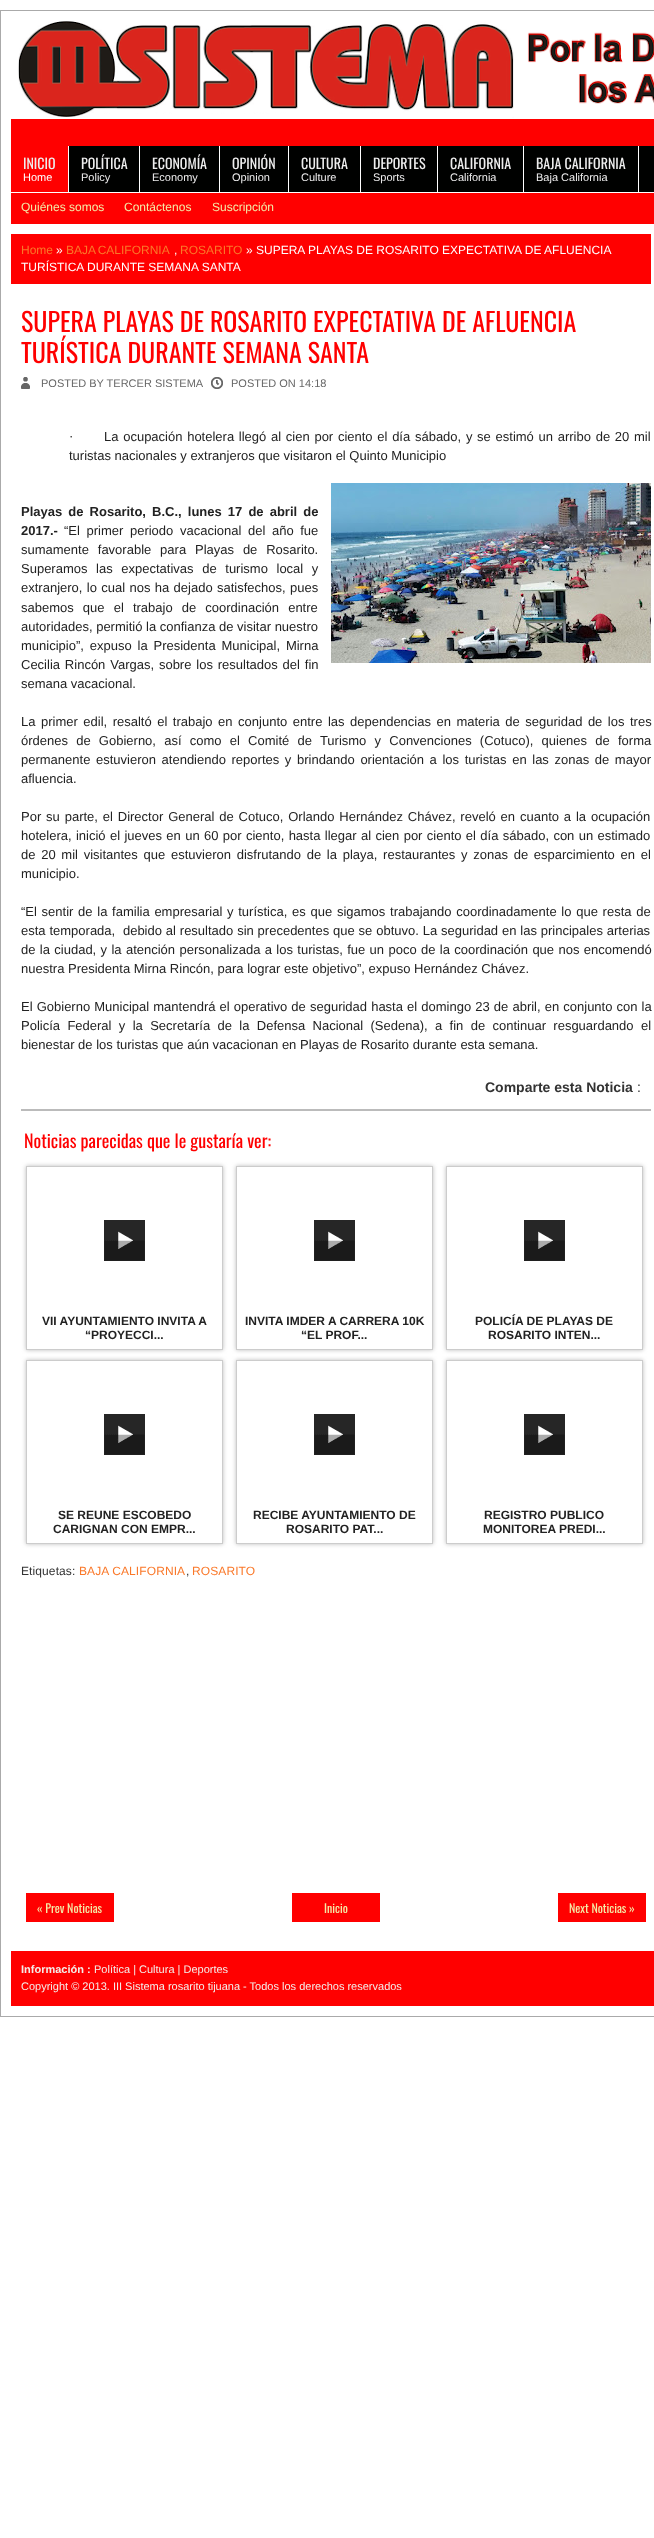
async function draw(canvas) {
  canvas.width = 654
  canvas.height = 2538
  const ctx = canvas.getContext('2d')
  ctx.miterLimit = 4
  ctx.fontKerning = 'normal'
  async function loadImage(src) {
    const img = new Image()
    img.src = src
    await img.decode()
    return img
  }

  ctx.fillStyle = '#fff'
  ctx.fillRect(0, 0, 654, 2538)
  ctx.strokeStyle = '#aaa'
  ctx.strokeRect(0.5, 10.5, 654, 2006)
  ctx.fillStyle = '#f00'
  ctx.fillRect(11, 119, 643, 27)
  ctx.drawImage(await loadImage('image0.png'), 11, 21, 643, 98)
  ctx.fillStyle = '#000100'
  ctx.fillRect(69, 146, 585, 46)
  ctx.fillStyle = '#f00'
  ctx.fillRect(11, 146, 57, 46)
  ctx.font = '14px Oswald'
  ctx.fillStyle = '#eee'
  ctx.fillText('INICIO', 23, 169)
  ctx.font = '11px Liberation Sans'
  ctx.fillStyle = '#fff'
  ctx.fillText('Home', 23, 181)
  ctx.fillRect(139, 146, 1, 46)
  ctx.font = '14px Oswald'
  ctx.fillStyle = '#eee'
  ctx.fillText('POLÍTICA', 81, 169)
  ctx.font = '11px Liberation Sans'
  ctx.fillText('Policy', 81, 181)
  ctx.fillStyle = '#fff'
  ctx.fillRect(219, 146, 1, 46)
  ctx.font = '14px Oswald'
  ctx.fillStyle = '#eee'
  ctx.fillText('ECONOMÍA', 152, 169)
  ctx.font = '11px Liberation Sans'
  ctx.fillText('Economy', 152, 181)
  ctx.fillStyle = '#fff'
  ctx.fillRect(288, 146, 1, 46)
  ctx.font = '14px Oswald'
  ctx.fillStyle = '#eee'
  ctx.fillText('OPINIÓN', 232, 169)
  ctx.font = '11px Liberation Sans'
  ctx.fillText('Opinion', 232, 181)
  ctx.fillStyle = '#fff'
  ctx.fillRect(360, 146, 1, 46)
  ctx.font = '14px Oswald'
  ctx.fillStyle = '#eee'
  ctx.fillText('CULTURA', 301, 169)
  ctx.font = '11px Liberation Sans'
  ctx.fillText('Culture', 301, 181)
  ctx.fillStyle = '#fff'
  ctx.fillRect(437, 146, 1, 46)
  ctx.font = '14px Oswald'
  ctx.fillStyle = '#eee'
  ctx.fillText('DEPORTES', 373, 169)
  ctx.font = '11px Liberation Sans'
  ctx.fillText('Sports', 373, 181)
  ctx.fillStyle = '#fff'
  ctx.fillRect(523, 146, 1, 46)
  ctx.font = '14px Oswald'
  ctx.fillStyle = '#eee'
  ctx.fillText('CALIFORNIA', 450, 169)
  ctx.font = '11px Liberation Sans'
  ctx.fillText('California', 450, 181)
  ctx.fillStyle = '#fff'
  ctx.fillRect(638, 146, 1, 46)
  ctx.font = '14px Oswald'
  ctx.fillStyle = '#eee'
  ctx.fillText('BAJA CALIFORNIA', 536, 169)
  ctx.font = '11px Liberation Sans'
  ctx.fillText('Baja California', 536, 181)
  ctx.fillStyle = '#f00'
  ctx.fillRect(11, 193, 643, 31)
  ctx.font = '12px Liberation Sans'
  ctx.fillStyle = '#f4eaa6'
  ctx.fillText('Quiénes somos', 21, 211)
  ctx.fillText('Contáctenos', 124, 211)
  ctx.fillText('Suscripción', 212, 211)
  ctx.fillStyle = '#f00'
  ctx.fillRect(11, 234, 640, 50)
  ctx.fillStyle = '#fa7829'
  ctx.fillText('Home', 21, 254)
  ctx.fillStyle = '#fff'
  ctx.fillText('»', 56, 254)
  ctx.wordSpacing = '-1px'
  ctx.fillStyle = '#fa7829'
  ctx.fillText('BAJA CALIFORNIA', 66, 254)
  ctx.wordSpacing = '0px'
  ctx.fillStyle = '#fff'
  ctx.fillText(',', 174, 254)
  ctx.fillStyle = '#fa7829'
  ctx.fillText('ROSARITO', 180, 254)
  ctx.fillStyle = '#fff'
  ctx.fillText('» SUPERA PLAYAS DE ROSARITO EXPECTATIVA DE AFLUENCIA', 246, 254)
  ctx.fillText('TURÍSTICA DURANTE SEMANA SANTA', 21, 271)
  ctx.font = '26px Oswald'
  ctx.fillStyle = '#f00'
  ctx.fillText('SUPERA PLAYAS DE ROSARITO EXPECTATIVA DE AFLUENCIA', 21, 332)
  ctx.fillText('TURÍSTICA DURANTE SEMANA SANTA', 21, 363)
  ctx.drawImage(await loadImage('image1.png'), 21, 377, 9, 12)
  ctx.font = '11px Liberation Sans'
  ctx.fillStyle = '#666'
  ctx.fillText('POSTED BY TERCER SISTEMA', 41, 387)
  ctx.drawImage(await loadImage('image2.png'), 211, 377, 12, 12)
  ctx.fillText('POSTED ON 14:18', 231, 387)
  ctx.font = '13px Liberation Serif'
  ctx.fillStyle = '#222'
  ctx.fillText('·', 69, 441)
  ctx.wordSpacing = '1.1px'
  ctx.font = '13px Liberation Sans'
  ctx.fillText('La ocupación hotelera llegó al cien por ciento el día sábado, y se estimó un arribo de 20 mil', 104, 441)
  ctx.wordSpacing = '0px'
  ctx.fillText('turistas nacionales y extranjeros que visitaron el Quinto Municipio', 69, 460)
  ctx.wordSpacing = '2.5px'
  ctx.font = 'bold 13px Liberation Sans'
  ctx.fillText('Playas de Rosarito, B.C., lunes 17 de abril de', 21, 516)
  ctx.wordSpacing = '0px'
  ctx.fillText('2017.-', 21, 535)
  ctx.wordSpacing = '3px'
  ctx.font = '13px Liberation Sans'
  ctx.fillText('“El primer periodo vacacional del año fue', 64, 535)
  ctx.wordSpacing = '5.25px'
  ctx.fillText('sumamente favorable para Playas de Rosarito.', 21, 554)
  ctx.wordSpacing = '5px'
  ctx.fillText('Superamos las expectativas de turismo local y', 21, 573)
  ctx.wordSpacing = '0.75px'
  ctx.fillText('extranjero, lo cual nos ha dejado satisfechos, pues', 21, 592)
  ctx.wordSpacing = '5.5px'
  ctx.fillText('sabemos que el trabajo de coordinación entre', 21, 612)
  ctx.wordSpacing = '0px'
  ctx.fillText('autoridades, permitió la confianza de visitar nuestro', 21, 631)
  ctx.wordSpacing = '2.25px'
  ctx.fillText('municipio”, expuso la Presidenta Municipal, Mirna', 21, 650)
  ctx.wordSpacing = '1.25px'
  ctx.fillText('Cecilia Rincón Vargas, sobre los resultados del fin', 21, 669)
  ctx.wordSpacing = '0px'
  ctx.fillText('semana vacacional.', 21, 688)
  ctx.drawImage(await loadImage('image3.png'), 331, 483, 320, 180)
  ctx.wordSpacing = '1.9px'
  ctx.fillText('La primer edil, resaltó el trabajo en conjunto entre las dependencias en materia de seguridad de los tres', 21, 726)
  ctx.wordSpacing = '4.6px'
  ctx.fillText('órdenes de Gobierno, así como el Comité de Turismo y Convenciones (Cotuco), quienes de forma', 21, 745)
  ctx.wordSpacing = '2px'
  ctx.fillText('permanente estuvieron atendiendo reportes y brindando orientación a los turistas en las zonas de mayor', 21, 764)
  ctx.wordSpacing = '0px'
  ctx.fillText('afluencia.', 21, 783)
  ctx.wordSpacing = '1.25px'
  ctx.fillText('Por su parte, el Director General de Cotuco, Orlando Hernández Chávez, reveló en cuanto a la ocupación', 21, 821)
  ctx.wordSpacing = '0.75px'
  ctx.fillText('hotelera, inició el jueves en un 60 por ciento, hasta llegar al cien por ciento el día sábado, con un estimado', 21, 840)
  ctx.wordSpacing = '2.1px'
  ctx.fillText('de 20 mil visitantes que estuvieron disfrutando de la playa, restaurantes y zonas de esparcimiento en el', 21, 859)
  ctx.wordSpacing = '0px'
  ctx.fillText('municipio.', 21, 878)
  ctx.wordSpacing = '1.1px'
  ctx.fillText('“El sentir de la familia empresarial y turística, es que sigamos trabajando coordinadamente lo que resta de', 21, 916)
  ctx.wordSpacing = '0.25px'
  ctx.fillText('esta temporada,  debido al resultado sin precedentes que se obtuvo. La seguridad en las principales arterias', 21, 935)
  ctx.wordSpacing = '0.75px'
  ctx.fillText('de la ciudad, y la atención personalizada a los turistas, fue un poco de la coordinación que nos encomendó', 21, 954)
  ctx.wordSpacing = '0px'
  ctx.fillText('nuestra Presidenta Mirna Rincón, para lograr este objetivo”, expuso Hernández Chávez.', 21, 973)
  ctx.wordSpacing = '0.5px'
  ctx.fillText('El Gobierno Municipal mantendrá el operativo de seguridad hasta el domingo 23 de abril, en conjunto con la', 21, 1011)
  ctx.wordSpacing = '3.75px'
  ctx.fillText('Policía Federal y la Secretaría de la Defensa Nacional (Sedena), a fin de continuar resguardando el', 21, 1030)
  ctx.wordSpacing = '0px'
  ctx.fillText('bienestar de los turistas que aún vacacionan en Playas de Rosarito durante esta semana.', 21, 1049)
  ctx.fillStyle = '#bbb'
  ctx.fillRect(21, 1109, 630, 2)
  ctx.font = 'bold 14px Liberation Sans'
  ctx.fillStyle = '#333'
  ctx.fillText('Comparte esta Noticia', 485, 1092)
  ctx.font = '14px Liberation Sans'
  ctx.fillText(':', 637, 1092)
  ctx.font = '18px Oswald'
  ctx.fillStyle = '#f00'
  ctx.fillText('Noticias parecidas que le gustaría ver:', 24, 1148)
  ctx.save()
  ctx.beginPath()
  ctx.moveTo(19, 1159)
  ctx.lineTo(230, 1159)
  ctx.lineTo(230, 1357)
  ctx.lineTo(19, 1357)
  ctx.closePath()
  ctx.moveTo(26, 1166)
  ctx.lineTo(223, 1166)
  ctx.lineTo(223, 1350)
  ctx.lineTo(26, 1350)
  ctx.closePath()
  ctx.clip('evenodd')
  ctx.fillStyle = '#bbb'
  ctx.filter = 'blur(2px)'
  ctx.beginPath()
  ctx.rect(26, 1166, 197, 184)
  ctx.fill()
  ctx.filter = 'none'
  ctx.restore()
  ctx.strokeStyle = '#ccc'
  ctx.strokeRect(26.5, 1166.5, 196, 183)
  ctx.drawImage(await loadImage('image4.png'), 104, 1220, 41, 41)
  ctx.font = 'bold 12px Liberation Sans'
  ctx.fillStyle = '#222'
  ctx.fillText('VII AYUNTAMIENTO INVITA A', 42, 1325)
  ctx.fillText('“PROYECCI...', 85, 1339)
  ctx.save()
  ctx.beginPath()
  ctx.moveTo(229, 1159)
  ctx.lineTo(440, 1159)
  ctx.lineTo(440, 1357)
  ctx.lineTo(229, 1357)
  ctx.closePath()
  ctx.moveTo(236, 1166)
  ctx.lineTo(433, 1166)
  ctx.lineTo(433, 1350)
  ctx.lineTo(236, 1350)
  ctx.closePath()
  ctx.clip('evenodd')
  ctx.fillStyle = '#bbb'
  ctx.filter = 'blur(2px)'
  ctx.beginPath()
  ctx.rect(236, 1166, 197, 184)
  ctx.fill()
  ctx.filter = 'none'
  ctx.restore()
  ctx.strokeRect(236.5, 1166.5, 196, 183)
  ctx.drawImage(await loadImage('image4.png'), 314, 1220, 41, 41)
  ctx.fillText('INVITA IMDER A CARRERA 10K', 245, 1325)
  ctx.fillText('“EL PROF...', 301, 1339)
  ctx.save()
  ctx.beginPath()
  ctx.moveTo(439, 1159)
  ctx.lineTo(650, 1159)
  ctx.lineTo(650, 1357)
  ctx.lineTo(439, 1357)
  ctx.closePath()
  ctx.moveTo(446, 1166)
  ctx.lineTo(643, 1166)
  ctx.lineTo(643, 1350)
  ctx.lineTo(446, 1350)
  ctx.closePath()
  ctx.clip('evenodd')
  ctx.fillStyle = '#bbb'
  ctx.filter = 'blur(2px)'
  ctx.beginPath()
  ctx.rect(446, 1166, 197, 184)
  ctx.fill()
  ctx.filter = 'none'
  ctx.restore()
  ctx.strokeRect(446.5, 1166.5, 196, 183)
  ctx.drawImage(await loadImage('image4.png'), 524, 1220, 41, 41)
  ctx.fillText('POLICÍA DE PLAYAS DE', 475, 1325)
  ctx.fillText('ROSARITO INTEN...', 488, 1339)
  ctx.save()
  ctx.beginPath()
  ctx.moveTo(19, 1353)
  ctx.lineTo(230, 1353)
  ctx.lineTo(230, 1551)
  ctx.lineTo(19, 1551)
  ctx.closePath()
  ctx.moveTo(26, 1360)
  ctx.lineTo(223, 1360)
  ctx.lineTo(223, 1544)
  ctx.lineTo(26, 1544)
  ctx.closePath()
  ctx.clip('evenodd')
  ctx.fillStyle = '#bbb'
  ctx.filter = 'blur(2px)'
  ctx.beginPath()
  ctx.rect(26, 1360, 197, 184)
  ctx.fill()
  ctx.filter = 'none'
  ctx.restore()
  ctx.strokeRect(26.5, 1360.5, 196, 183)
  ctx.drawImage(await loadImage('image4.png'), 104, 1414, 41, 41)
  ctx.fillText('SE REUNE ESCOBEDO', 58, 1519)
  ctx.fillText('CARIGNAN CON EMPR...', 53, 1533)
  ctx.save()
  ctx.beginPath()
  ctx.moveTo(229, 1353)
  ctx.lineTo(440, 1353)
  ctx.lineTo(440, 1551)
  ctx.lineTo(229, 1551)
  ctx.closePath()
  ctx.moveTo(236, 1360)
  ctx.lineTo(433, 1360)
  ctx.lineTo(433, 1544)
  ctx.lineTo(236, 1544)
  ctx.closePath()
  ctx.clip('evenodd')
  ctx.fillStyle = '#bbb'
  ctx.filter = 'blur(2px)'
  ctx.beginPath()
  ctx.rect(236, 1360, 197, 184)
  ctx.fill()
  ctx.filter = 'none'
  ctx.restore()
  ctx.strokeRect(236.5, 1360.5, 196, 183)
  ctx.drawImage(await loadImage('image4.png'), 314, 1414, 41, 41)
  ctx.fillText('RECIBE AYUNTAMIENTO DE', 253, 1519)
  ctx.fillText('ROSARITO PAT...', 286, 1533)
  ctx.save()
  ctx.beginPath()
  ctx.moveTo(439, 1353)
  ctx.lineTo(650, 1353)
  ctx.lineTo(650, 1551)
  ctx.lineTo(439, 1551)
  ctx.closePath()
  ctx.moveTo(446, 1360)
  ctx.lineTo(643, 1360)
  ctx.lineTo(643, 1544)
  ctx.lineTo(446, 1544)
  ctx.closePath()
  ctx.clip('evenodd')
  ctx.fillStyle = '#bbb'
  ctx.filter = 'blur(2px)'
  ctx.beginPath()
  ctx.rect(446, 1360, 197, 184)
  ctx.fill()
  ctx.filter = 'none'
  ctx.restore()
  ctx.strokeRect(446.5, 1360.5, 196, 183)
  ctx.drawImage(await loadImage('image4.png'), 524, 1414, 41, 41)
  ctx.fillText('REGISTRO PUBLICO', 484, 1519)
  ctx.fillText('MONITOREA PREDI...', 483, 1533)
  ctx.letterSpacing = '0.1px'
  ctx.font = '12px Liberation Sans'
  ctx.fillStyle = '#333'
  ctx.fillText('Etiquetas:', 21, 1575)
  ctx.fillStyle = '#fa7829'
  ctx.fillText('BAJA CALIFORNIA', 79, 1575)
  ctx.fillStyle = '#333'
  ctx.fillText(',', 186, 1575)
  ctx.fillStyle = '#fa7829'
  ctx.fillText('ROSARITO', 192, 1575)
  ctx.fillStyle = '#f00'
  ctx.fillRect(26, 1893, 88, 29)
  ctx.letterSpacing = '0px'
  ctx.font = '12px Oswald'
  ctx.fillStyle = '#f4eaa6'
  ctx.fillText('« Prev Noticias', 37, 1913)
  ctx.fillStyle = '#f00'
  ctx.fillRect(292, 1893, 88, 29)
  ctx.fillStyle = '#f4eaa6'
  ctx.fillText('Inicio', 324, 1913)
  ctx.fillStyle = '#f00'
  ctx.fillRect(558, 1893, 88, 29)
  ctx.fillStyle = '#f4eaa6'
  ctx.fillText('Next Noticias »', 569, 1913)
  ctx.fillStyle = '#f00'
  ctx.fillRect(11, 1951, 643, 55)
  ctx.font = 'bold 11px Liberation Sans'
  ctx.fillStyle = '#f4ede9'
  ctx.fillText('Información :', 21, 1973)
  ctx.font = '11px Liberation Sans'
  ctx.fillText('Política | Cultura | Deportes', 94, 1973)
  ctx.fillText('Copyright © 2013. III Sistema rosarito tijuana - Todos los derechos reservados', 21, 1990)
}

draw(document.querySelector('canvas'))
